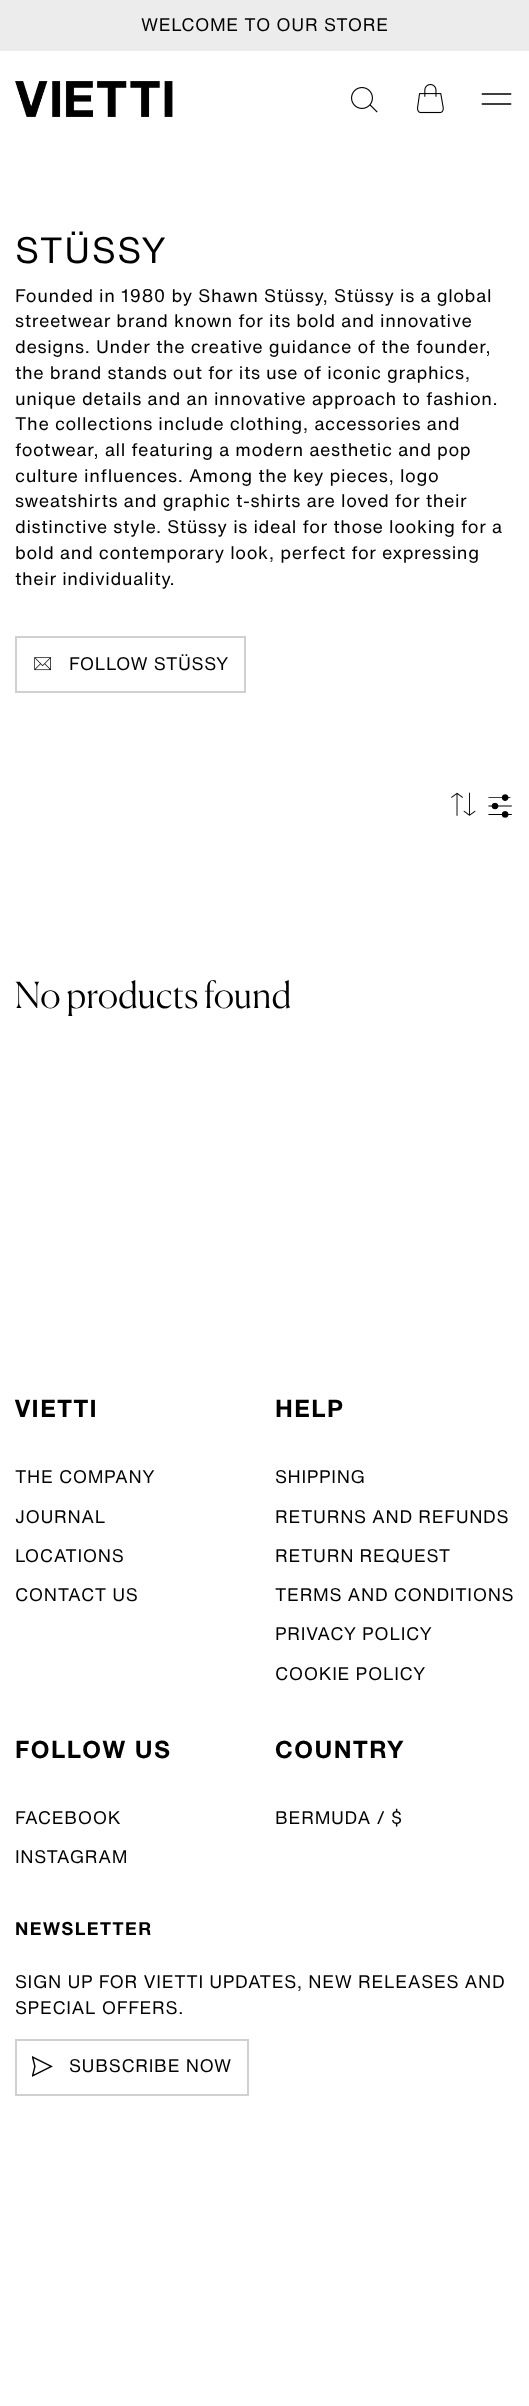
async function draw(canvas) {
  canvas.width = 529
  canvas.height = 2406
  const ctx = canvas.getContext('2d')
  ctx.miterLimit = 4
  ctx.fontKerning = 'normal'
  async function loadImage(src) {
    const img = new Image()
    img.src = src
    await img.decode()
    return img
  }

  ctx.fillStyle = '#fff'
  ctx.fillRect(0, 0, 529, 2406)
  ctx.fillStyle = '#ececec'
  ctx.fillRect(0, 0, 529, 51)
  ctx.letterSpacing = '0.6px'
  ctx.font = '18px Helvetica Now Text'
  ctx.fillStyle = '#000'
  ctx.fillText('WELCOME TO OUR STORE', 141, 31)
  ctx.drawImage(await loadImage('image0.png'), 15, 81, 158, 36)
  ctx.drawImage(await loadImage('image1.png'), 351, 87, 27, 26)
  ctx.drawImage(await loadImage('image2.png'), 417, 84, 27, 30)
  ctx.beginPath()
  ctx.moveTo(482.5, 94)
  ctx.lineTo(510.5, 94)
  ctx.moveTo(482.5, 104)
  ctx.lineTo(510.5, 104)
  ctx.strokeStyle = '#000'
  ctx.lineWidth = 1.5
  ctx.lineCap = 'square'
  ctx.stroke()
  ctx.letterSpacing = '1.5px'
  ctx.font = '36px Helvetica Now Text'
  ctx.fillText('STÜSSY', 15, 263)
  ctx.letterSpacing = '0.6px'
  ctx.font = '18px Helvetica Now Text'
  ctx.fillText('Founded in 1980 by Shawn Stüssy, Stüssy is a global', 15, 302)
  ctx.fillText('streetwear brand known for its bold and innovative', 15, 327)
  ctx.fillText('designs. Under the creative guidance of the founder,', 15, 353)
  ctx.fillText('the brand stands out for its use of iconic graphics,', 15, 379)
  ctx.fillText('unique details and an innovative approach to fashion.', 15, 405)
  ctx.fillText('The collections include clothing, accessories and', 15, 430)
  ctx.fillText('footwear, all featuring a modern aesthetic and pop', 15, 456)
  ctx.fillText('culture influences. Among the key pieces, logo', 15, 482)
  ctx.fillText('sweatshirts and graphic t-shirts are loved for their', 15, 507)
  ctx.fillText('distinctive style. Stüssy is ideal for those looking for a', 15, 533)
  ctx.fillText('bold and contemporary look, perfect for expressing', 15, 559)
  ctx.fillText('their individuality.', 15, 585)
  ctx.strokeStyle = '#d0d0d0'
  ctx.lineWidth = 2
  ctx.strokeRect(16, 637, 229, 55)
  ctx.drawImage(await loadImage('image3.png'), 34, 657, 17, 14)
  ctx.fillText('FOLLOW STÜSSY', 69, 670)
  ctx.drawImage(await loadImage('image4.png'), 451, 792, 25, 24)
  ctx.drawImage(await loadImage('image5.png'), 488, 794, 24, 24)
  ctx.letterSpacing = '0px'
  ctx.font = '300 36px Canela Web'
  ctx.fillText('No products found', 15, 1008)
  ctx.letterSpacing = '1.5px'
  ctx.font = 'bold 24px "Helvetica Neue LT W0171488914"'
  ctx.fillText('VIETTI', 15, 1417)
  ctx.letterSpacing = '0.6px'
  ctx.font = '18px Helvetica Now Text'
  ctx.fillText('THE COMPANY', 15, 1483)
  ctx.fillText('JOURNAL', 15, 1523)
  ctx.fillText('LOCATIONS', 15, 1562)
  ctx.fillText('CONTACT US', 15, 1601)
  ctx.letterSpacing = '1.5px'
  ctx.font = 'bold 24px "Helvetica Neue LT W0171488914"'
  ctx.fillText('HELP', 275, 1417)
  ctx.letterSpacing = '0.6px'
  ctx.font = '18px Helvetica Now Text'
  ctx.fillText('SHIPPING', 275, 1483)
  ctx.fillText('RETURNS AND REFUNDS', 275, 1523)
  ctx.fillText('RETURN REQUEST', 275, 1562)
  ctx.fillText('TERMS AND CONDITIONS', 275, 1601)
  ctx.fillText('PRIVACY POLICY', 275, 1640)
  ctx.fillText('COOKIE POLICY', 275, 1680)
  ctx.letterSpacing = '1.5px'
  ctx.font = 'bold 24px "Helvetica Neue LT W0171488914"'
  ctx.fillText('FOLLOW US', 15, 1758)
  ctx.letterSpacing = '0.6px'
  ctx.font = '18px Helvetica Now Text'
  ctx.fillText('FACEBOOK', 15, 1824)
  ctx.fillText('INSTAGRAM', 15, 1863)
  ctx.letterSpacing = '1.5px'
  ctx.font = 'bold 24px "Helvetica Neue LT W0171488914"'
  ctx.fillText('COUNTRY', 275, 1758)
  ctx.letterSpacing = '0.6px'
  ctx.font = '18px Helvetica Now Text'
  ctx.fillText('BERMUDA / $', 275, 1824)
  ctx.letterSpacing = '1.5px'
  ctx.font = 'bold 18px "Helvetica Neue LT W0171488914"'
  ctx.fillText('NEWSLETTER', 15, 1935)
  ctx.letterSpacing = '0.6px'
  ctx.font = '18px Helvetica Now Text'
  ctx.fillText('SIGN UP FOR VIETTI UPDATES, NEW RELEASES AND', 15, 1988)
  ctx.fillText('SPECIAL OFFERS.', 15, 2014)
  ctx.strokeRect(16, 2040, 232, 55)
  ctx.drawImage(await loadImage('image6.png'), 32, 2056, 21, 21)
  ctx.fillText('SUBSCRIBE NOW', 69, 2072)
}

draw(document.querySelector('canvas'))
